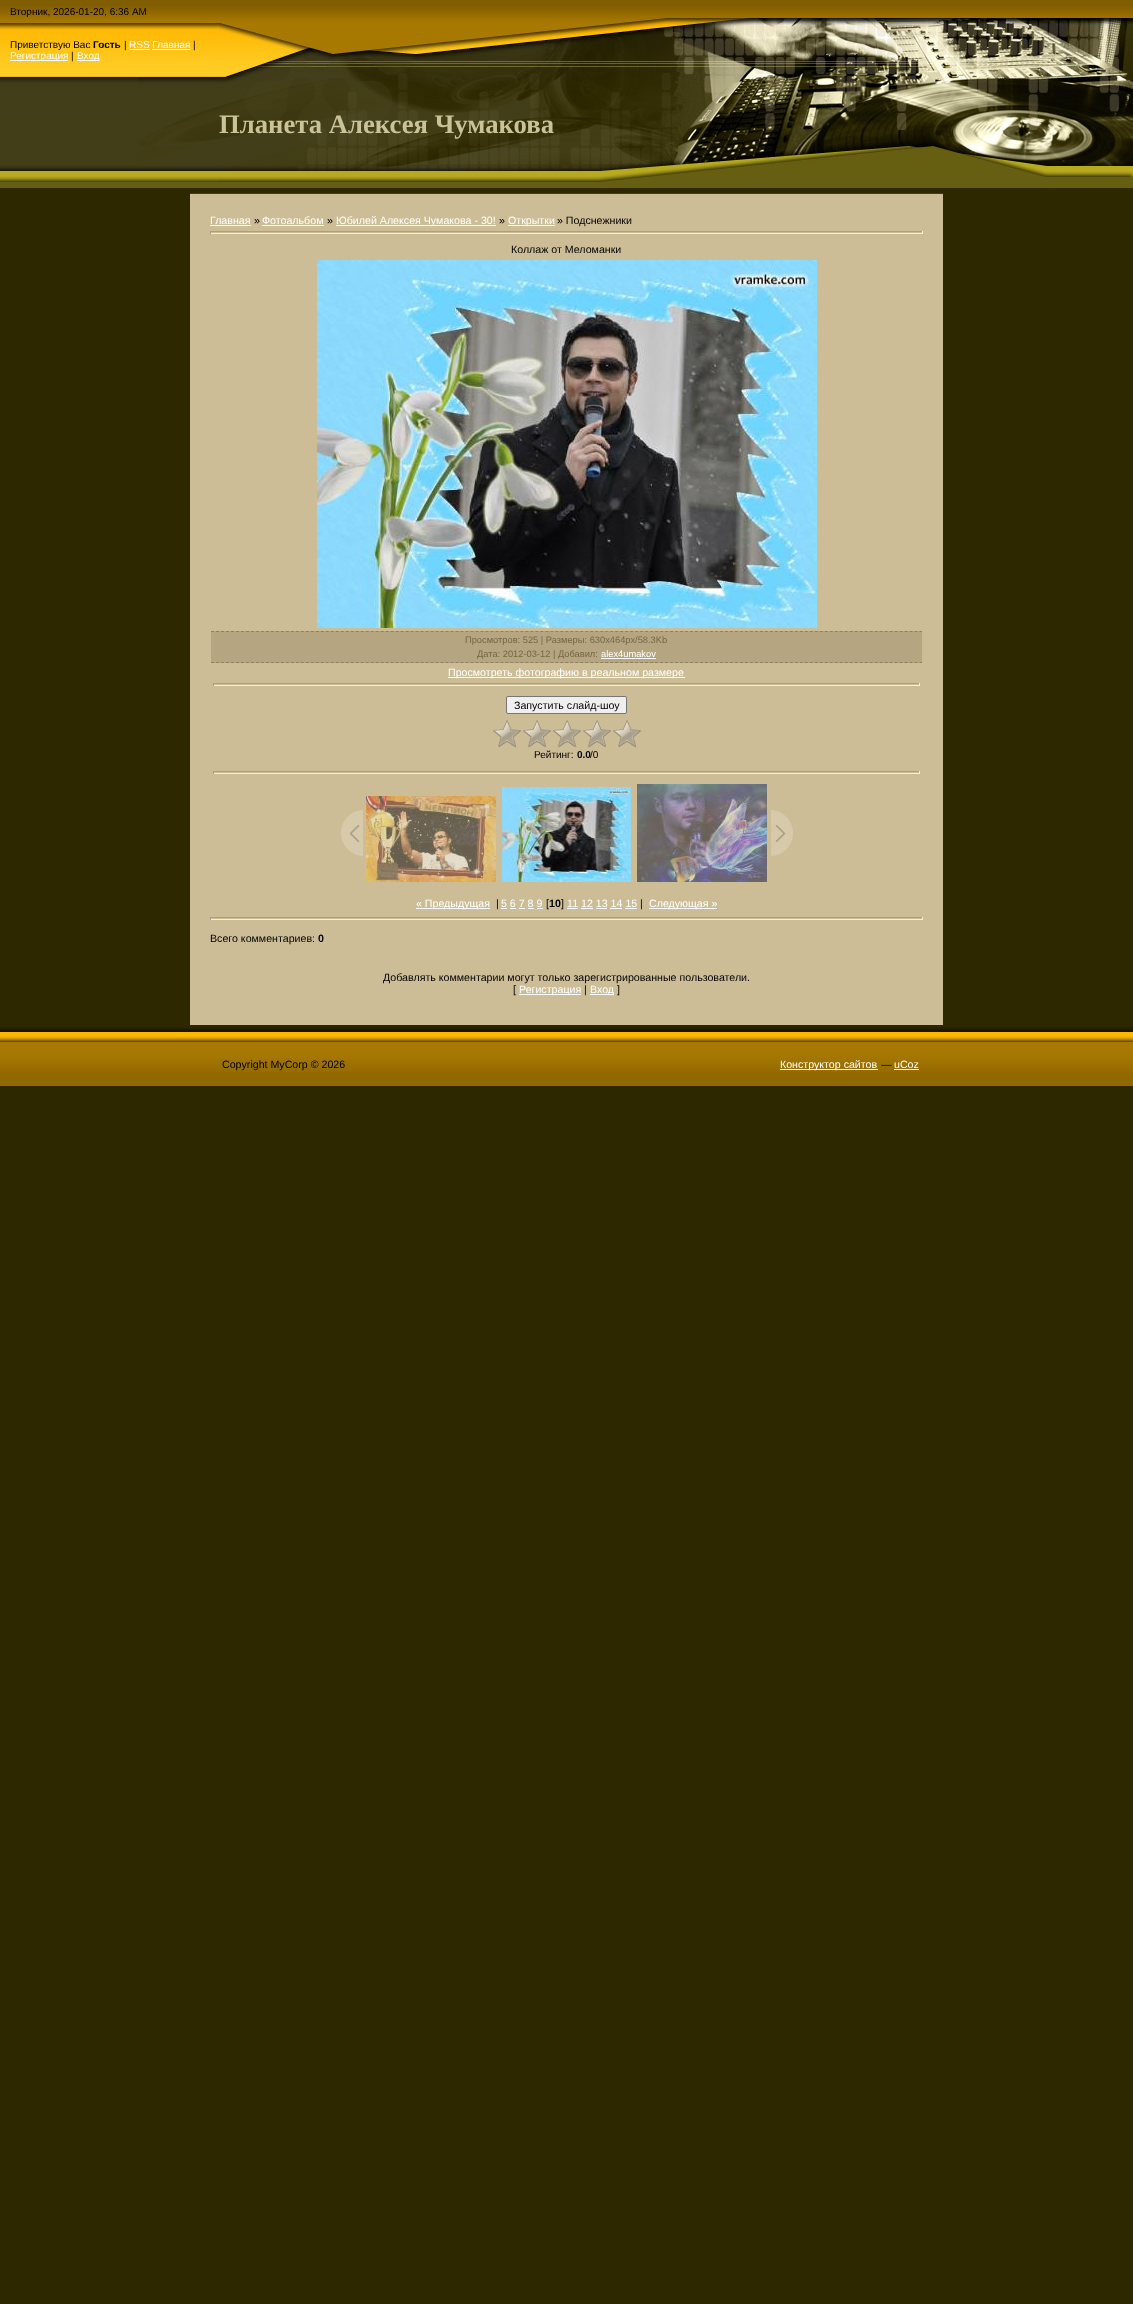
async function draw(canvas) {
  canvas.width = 1133
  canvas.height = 2304
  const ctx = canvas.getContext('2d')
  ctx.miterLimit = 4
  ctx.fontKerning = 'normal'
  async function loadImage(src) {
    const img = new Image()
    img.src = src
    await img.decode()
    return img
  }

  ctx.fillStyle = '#2d2800'
  ctx.fillRect(0, 0, 1133, 2304)
  ctx.drawImage(await loadImage('image0.png'), 0, 0, 1133, 188)
  ctx.font = '10px Liberation Sans'
  ctx.fillStyle = '#000'
  ctx.fillText('Вторник, 2026-01-20, 6:36 AM', 10, 15)
  ctx.drawImage(await loadImage('image1.png'), 621, 18, 512, 5)
  ctx.fillText('Приветствую Вас', 10, 48)
  ctx.font = 'bold 10px Liberation Sans'
  ctx.fillText('Гость', 93, 48)
  ctx.font = '10px Liberation Sans'
  ctx.fillText('|', 124, 48)
  ctx.fillStyle = '#fff'
  ctx.fillText('RSS Главная', 129, 48)
  ctx.fillRect(129, 49, 21, 1)
  ctx.fillStyle = '#000'
  ctx.fillText('|', 193, 48)
  ctx.fillStyle = '#fff'
  ctx.fillRect(152, 49, 39, 1)
  ctx.fillRect(10, 60, 58, 1)
  ctx.fillText('Регистрация', 10, 59)
  ctx.fillStyle = '#000'
  ctx.fillText('|', 71, 59)
  ctx.fillStyle = '#fff'
  ctx.fillRect(77, 60, 22, 1)
  ctx.fillText('Вход', 77, 59)
  ctx.drawImage(await loadImage('image2.png'), 219, 23, 393, 54)
  ctx.drawImage(await loadImage('image3.png'), 612, 23, 521, 54)
  ctx.drawImage(await loadImage('image4.png'), 137, 77, 82, 89)
  ctx.drawImage(await loadImage('image5.png'), 219, 77, 393, 94)
  ctx.font = 'bold 26.7px Liberation Serif'
  ctx.fillStyle = '#c9c397'
  ctx.fillText('Планета Алексея Чумакова', 219, 133)
  ctx.drawImage(await loadImage('image6.png'), 612, 77, 521, 94)
  ctx.drawImage(await loadImage('image7.png'), 219, 171, 914, 11)
  ctx.fillStyle = '#cdbd97'
  ctx.fillRect(190, 194, 753, 831)
  ctx.fillStyle = '#443f0c'
  ctx.fillRect(190, 193, 753, 1)
  ctx.font = '10.65px Liberation Sans'
  ctx.fillStyle = '#fff'
  ctx.fillText('Главная', 210, 224)
  ctx.fillRect(210, 225, 41, 1)
  ctx.fillStyle = '#000'
  ctx.fillText('»', 254, 224)
  ctx.fillStyle = '#fff'
  ctx.fillText('Фотоальбом', 262, 224)
  ctx.fillRect(262, 225, 62, 1)
  ctx.fillStyle = '#000'
  ctx.fillText('»', 327, 224)
  ctx.fillStyle = '#fff'
  ctx.fillRect(336, 225, 160, 1)
  ctx.fillText('Юбилей Алексея Чумакова - 30!', 336, 224)
  ctx.fillStyle = '#000'
  ctx.fillText('»', 499, 224)
  ctx.fillStyle = '#fff'
  ctx.fillRect(508, 225, 47, 1)
  ctx.fillText('Открытки', 508, 224)
  ctx.fillStyle = '#000'
  ctx.fillText('» Подснежники', 557, 224)
  ctx.fillStyle = '#9f9f9f'
  ctx.fillRect(210, 231, 713, 1)
  ctx.fillStyle = '#eee'
  ctx.fillRect(922, 231, 1, 3)
  ctx.fillRect(210, 233, 713, 1)
  ctx.fillStyle = '#9f9f9f'
  ctx.fillRect(210, 231, 1, 3)
  ctx.fillStyle = '#000'
  ctx.fillText('Коллаж от Меломанки', 511, 253)
  ctx.drawImage(await loadImage('image8.png'), 317, 260, 500, 368)
  ctx.fillStyle = '#b6a581'
  ctx.fillRect(211, 631, 711, 32)
  ctx.beginPath()
  ctx.moveTo(211, 631.5)
  ctx.lineTo(922, 631.5)
  ctx.strokeStyle = '#90805e'
  ctx.setLineDash([3, 1.99])
  ctx.stroke()
  ctx.beginPath()
  ctx.moveTo(211, 662.5)
  ctx.lineTo(922, 662.5)
  ctx.stroke()
  ctx.font = '9.3px Liberation Sans'
  ctx.fillStyle = '#756746'
  ctx.fillText('Просмотров: 525 | Размеры: 630x464px/58.3Kb', 465, 643)
  ctx.fillText('Дата: 2012-03-12 | Добавил:', 477, 657)
  ctx.fillStyle = '#fff'
  ctx.fillText('alex4umakov', 601, 657)
  ctx.fillRect(601, 658, 55, 1)
  ctx.fillRect(448, 677, 237, 1)
  ctx.font = '10.65px Liberation Sans'
  ctx.fillText('Просмотреть фотографию в реальном размере', 448, 676)
  ctx.fillStyle = '#9f9f9f'
  ctx.fillRect(213, 683, 707, 1)
  ctx.fillStyle = '#eee'
  ctx.fillRect(919, 683, 1, 3)
  ctx.fillRect(213, 685, 707, 1)
  ctx.fillStyle = '#9f9f9f'
  ctx.fillRect(213, 683, 1, 3)
  ctx.fillStyle = '#efefef'
  ctx.beginPath()
  ctx.roundRect(506.5, 696.5, 120, 17, 1.5)
  ctx.fill()
  ctx.strokeStyle = '#767676'
  ctx.setLineDash([])
  ctx.stroke()
  ctx.fillStyle = '#000'
  ctx.fillText('Запустить слайд-шоу', 514, 709)
  ctx.drawImage(await loadImage('image9.png'), 493, 720, 148, 28)
  ctx.font = '10px Liberation Sans'
  ctx.fillText('Рейтинг:', 534, 758)
  ctx.font = 'bold 10px Liberation Sans'
  ctx.fillText('0.0', 577, 758)
  ctx.font = '10px Liberation Sans'
  ctx.fillText('/0', 590, 758)
  ctx.fillStyle = '#9f9f9f'
  ctx.fillRect(213, 771, 707, 1)
  ctx.fillStyle = '#eee'
  ctx.fillRect(919, 771, 1, 3)
  ctx.fillRect(213, 773, 707, 1)
  ctx.fillStyle = '#9f9f9f'
  ctx.fillRect(213, 771, 1, 3)
  ctx.drawImage(await loadImage('image10.png'), 341, 810, 22, 46)
  ctx.drawImage(await loadImage('image11.png'), 366, 796, 130, 86)
  ctx.drawImage(await loadImage('image12.png'), 502, 787, 129, 95)
  ctx.drawImage(await loadImage('image13.png'), 637, 784, 130, 98)
  ctx.drawImage(await loadImage('image14.png'), 771, 810, 22, 46)
  ctx.fillStyle = '#fff'
  ctx.fillRect(416, 908, 74, 1)
  ctx.font = '10.65px Liberation Sans'
  ctx.fillText('« Предыдущая', 416, 907)
  ctx.fillStyle = '#000'
  ctx.fillText('|', 496, 907)
  ctx.fillStyle = '#fff'
  ctx.fillText('5 6 7 8 9', 501, 907)
  ctx.fillRect(501, 908, 6, 1)
  ctx.fillStyle = '#000'
  ctx.fillText('[', 546, 907)
  ctx.font = 'bold 10.65px Liberation Sans'
  ctx.fillText('10', 549, 907)
  ctx.font = '10.65px Liberation Sans'
  ctx.fillText(']', 561, 907)
  ctx.fillStyle = '#fff'
  ctx.fillText('11 12 13 14 15', 567, 907)
  ctx.fillRect(567, 908, 11, 1)
  ctx.fillStyle = '#000'
  ctx.fillText('|', 640, 907)
  ctx.fillStyle = '#fff'
  ctx.fillRect(649, 908, 68, 1)
  ctx.fillText('Следующая »', 649, 907)
  ctx.fillRect(510, 908, 6, 1)
  ctx.fillRect(519, 908, 6, 1)
  ctx.fillRect(528, 908, 6, 1)
  ctx.fillRect(537, 908, 6, 1)
  ctx.fillRect(581, 908, 12, 1)
  ctx.fillRect(596, 908, 11, 1)
  ctx.fillRect(610, 908, 12, 1)
  ctx.fillRect(625, 908, 12, 1)
  ctx.fillStyle = '#9f9f9f'
  ctx.fillRect(210, 917, 713, 1)
  ctx.fillStyle = '#eee'
  ctx.fillRect(922, 917, 1, 3)
  ctx.fillRect(210, 919, 713, 1)
  ctx.fillStyle = '#9f9f9f'
  ctx.fillRect(210, 917, 1, 3)
  ctx.fillStyle = '#000'
  ctx.fillText('Всего комментариев:', 210, 942)
  ctx.font = 'bold 10.65px Liberation Sans'
  ctx.fillText('0', 318, 942)
  ctx.font = '10.65px Liberation Sans'
  ctx.fillText('Добавлять комментарии могут только зарегистрированные пользователи.', 383, 981)
  ctx.fillText('[', 513, 993)
  ctx.fillStyle = '#fff'
  ctx.fillRect(519, 994, 62, 1)
  ctx.fillText('Регистрация', 519, 993)
  ctx.fillStyle = '#000'
  ctx.fillText('|', 584, 993)
  ctx.fillStyle = '#fff'
  ctx.fillRect(590, 994, 24, 1)
  ctx.fillText('Вход', 590, 993)
  ctx.fillStyle = '#000'
  ctx.fillText(']', 617, 993)
  ctx.drawImage(await loadImage('image15.png'), 0, 1025, 1133, 61)
  ctx.fillText('Copyright MyCorp © 2026', 222, 1068)
  ctx.fillStyle = '#fff'
  ctx.fillRect(780, 1069, 98, 1)
  ctx.fillText('Конструктор сайтов', 780, 1068)
  ctx.fillStyle = '#000'
  ctx.fillText('—', 881, 1068)
  ctx.fillStyle = '#fff'
  ctx.fillText('uCoz', 894, 1068)
  ctx.fillRect(894, 1069, 25, 1)
}

draw(document.querySelector('canvas'))
